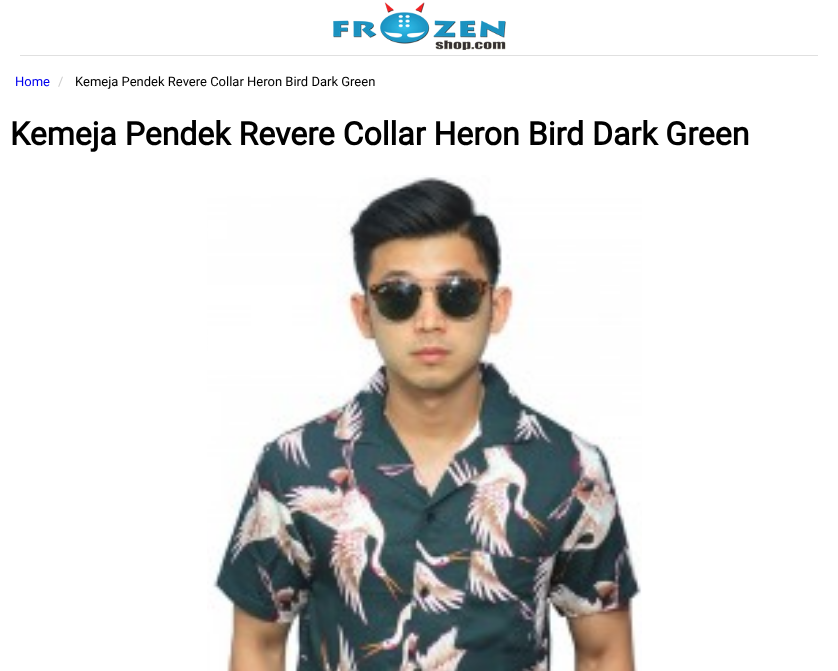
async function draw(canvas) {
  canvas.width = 838
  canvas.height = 671
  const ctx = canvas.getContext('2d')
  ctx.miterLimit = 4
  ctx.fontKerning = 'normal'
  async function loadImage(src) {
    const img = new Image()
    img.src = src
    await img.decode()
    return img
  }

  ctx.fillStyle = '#fff'
  ctx.fillRect(0, 0, 838, 671)
  ctx.fillStyle = '#e0e0e0'
  ctx.fillRect(20, 55, 798, 1)
  ctx.drawImage(await loadImage('image0.png'), 333, 2, 173, 48)
  ctx.font = '13px Roboto'
  ctx.fillStyle = '#00e'
  ctx.fillText('Home', 15, 86)
  ctx.fillStyle = '#ccc'
  ctx.fillText('/', 58, 86)
  ctx.fillStyle = '#000'
  ctx.fillText('Kemeja Pendek Revere Collar Heron Bird Dark Green', 75, 86)
  ctx.font = 'bold 32px Roboto'
  ctx.fillText('Kemeja Pendek Revere Collar Heron Bird Dark Green', 10, 145)
  ctx.drawImage(await loadImage('image1.png'), 207, 175, 435, 496)
}

draw(document.querySelector('canvas'))
